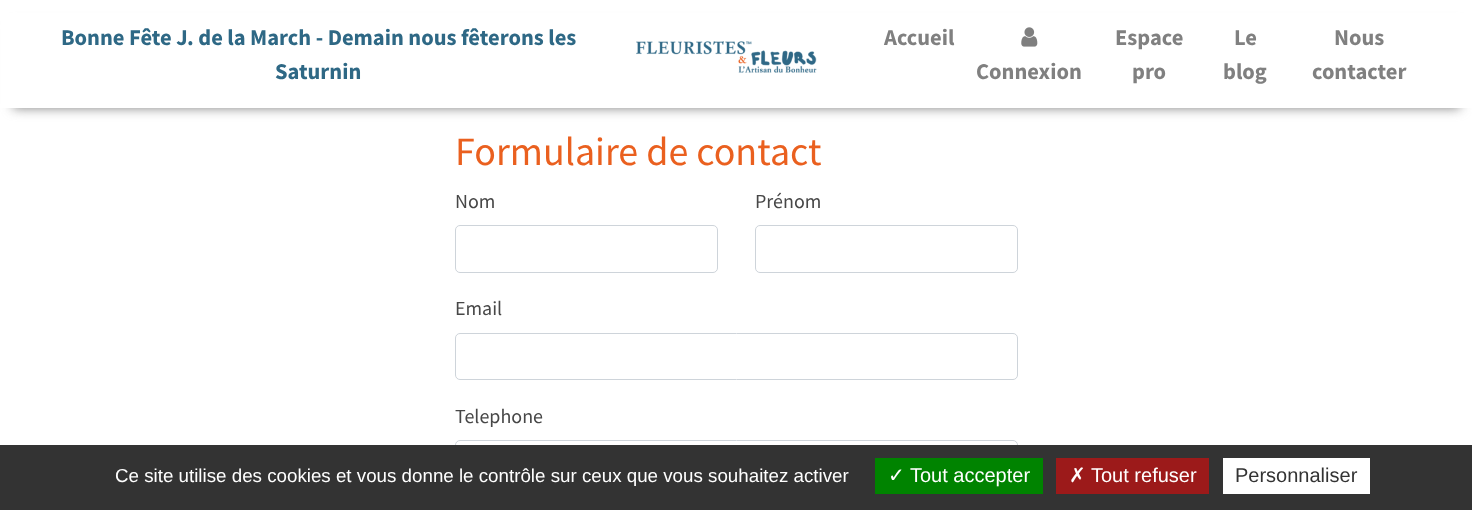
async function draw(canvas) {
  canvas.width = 1472
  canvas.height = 510
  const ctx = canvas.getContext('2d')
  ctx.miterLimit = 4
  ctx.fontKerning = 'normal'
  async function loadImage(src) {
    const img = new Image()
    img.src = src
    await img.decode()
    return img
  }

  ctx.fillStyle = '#fff'
  ctx.fillRect(0, 0, 1472, 510)
  ctx.fillStyle = '#808080'
  ctx.filter = 'blur(6px)'
  ctx.beginPath()
  ctx.rect(13, 25, 1447, 83)
  ctx.fill()
  ctx.filter = 'none'
  ctx.fillStyle = '#fff'
  ctx.fillRect(1, 13, 1471, 95)
  ctx.font = 'bold 22.5px Source Sans Pro'
  ctx.fillStyle = '#2e6885'
  ctx.fillText('Bonne Fête J. de la March - Demain nous fêterons les', 61, 45)
  ctx.fillText('Saturnin', 275, 79)
  ctx.drawImage(await loadImage('image0.png'), 636, 41, 181, 32)
  ctx.fillStyle = '#808080'
  ctx.fillText('Accueil', 884, 45)
  ctx.drawImage(await loadImage('image1.png'), 1021, 27, 17, 20)
  ctx.fillText('Connexion', 976, 79)
  ctx.fillText('Espace', 1115, 45)
  ctx.fillText('pro', 1132, 79)
  ctx.fillText('Le', 1234, 45)
  ctx.fillText('blog', 1223, 79)
  ctx.fillText('Nous', 1334, 45)
  ctx.fillText('contacter', 1312, 79)
  ctx.font = '40px Source Sans Pro'
  ctx.fillStyle = '#ea601f'
  ctx.fillText('Formulaire de contact', 455, 165)
  ctx.font = '20px Source Sans Pro'
  ctx.fillStyle = '#474747'
  ctx.fillText('Nom', 455, 208)
  ctx.beginPath()
  ctx.roundRect(455.5, 225.5, 262, 47, 4.5)
  ctx.strokeStyle = '#ced4da'
  ctx.stroke()
  ctx.fillText('Prénom', 755, 208)
  ctx.beginPath()
  ctx.roundRect(755.5, 225.5, 262, 47, 4.5)
  ctx.stroke()
  ctx.fillText('Email', 455, 315)
  ctx.beginPath()
  ctx.roundRect(455.5, 333.5, 562, 46, 4.5)
  ctx.stroke()
  ctx.fillText('Telephone', 455, 423)
  ctx.beginPath()
  ctx.roundRect(455.5, 440.5, 562, 47, 4.5)
  ctx.stroke()
  ctx.fillStyle = '#333'
  ctx.fillRect(0, 445, 1472, 65)
  ctx.font = '18.75px Liberation Sans'
  ctx.fillStyle = '#fff'
  ctx.fillText('Ce site utilise des cookies et vous donne le contrôle sur ceux que vous souhaitez activer', 115, 482)
  ctx.fillStyle = '#008300'
  ctx.fillRect(875, 458, 168, 36)
  ctx.font = '20px DejaVu Sans'
  ctx.fillStyle = '#fff'
  ctx.fillText('✓', 888, 482)
  ctx.font = '20px Liberation Sans'
  ctx.fillText('Tout accepter', 910, 482)
  ctx.fillStyle = '#9c1a1a'
  ctx.fillRect(1056, 458, 153, 36)
  ctx.font = '20px DejaVu Sans'
  ctx.fillStyle = '#fff'
  ctx.fillText('✗', 1069, 482)
  ctx.font = '20px Liberation Sans'
  ctx.fillText('Tout refuser', 1091, 482)
  ctx.fillRect(1223, 458, 147, 36)
  ctx.fillStyle = '#333'
  ctx.fillText('Personnaliser', 1235, 482)
}

draw(document.querySelector('canvas'))
